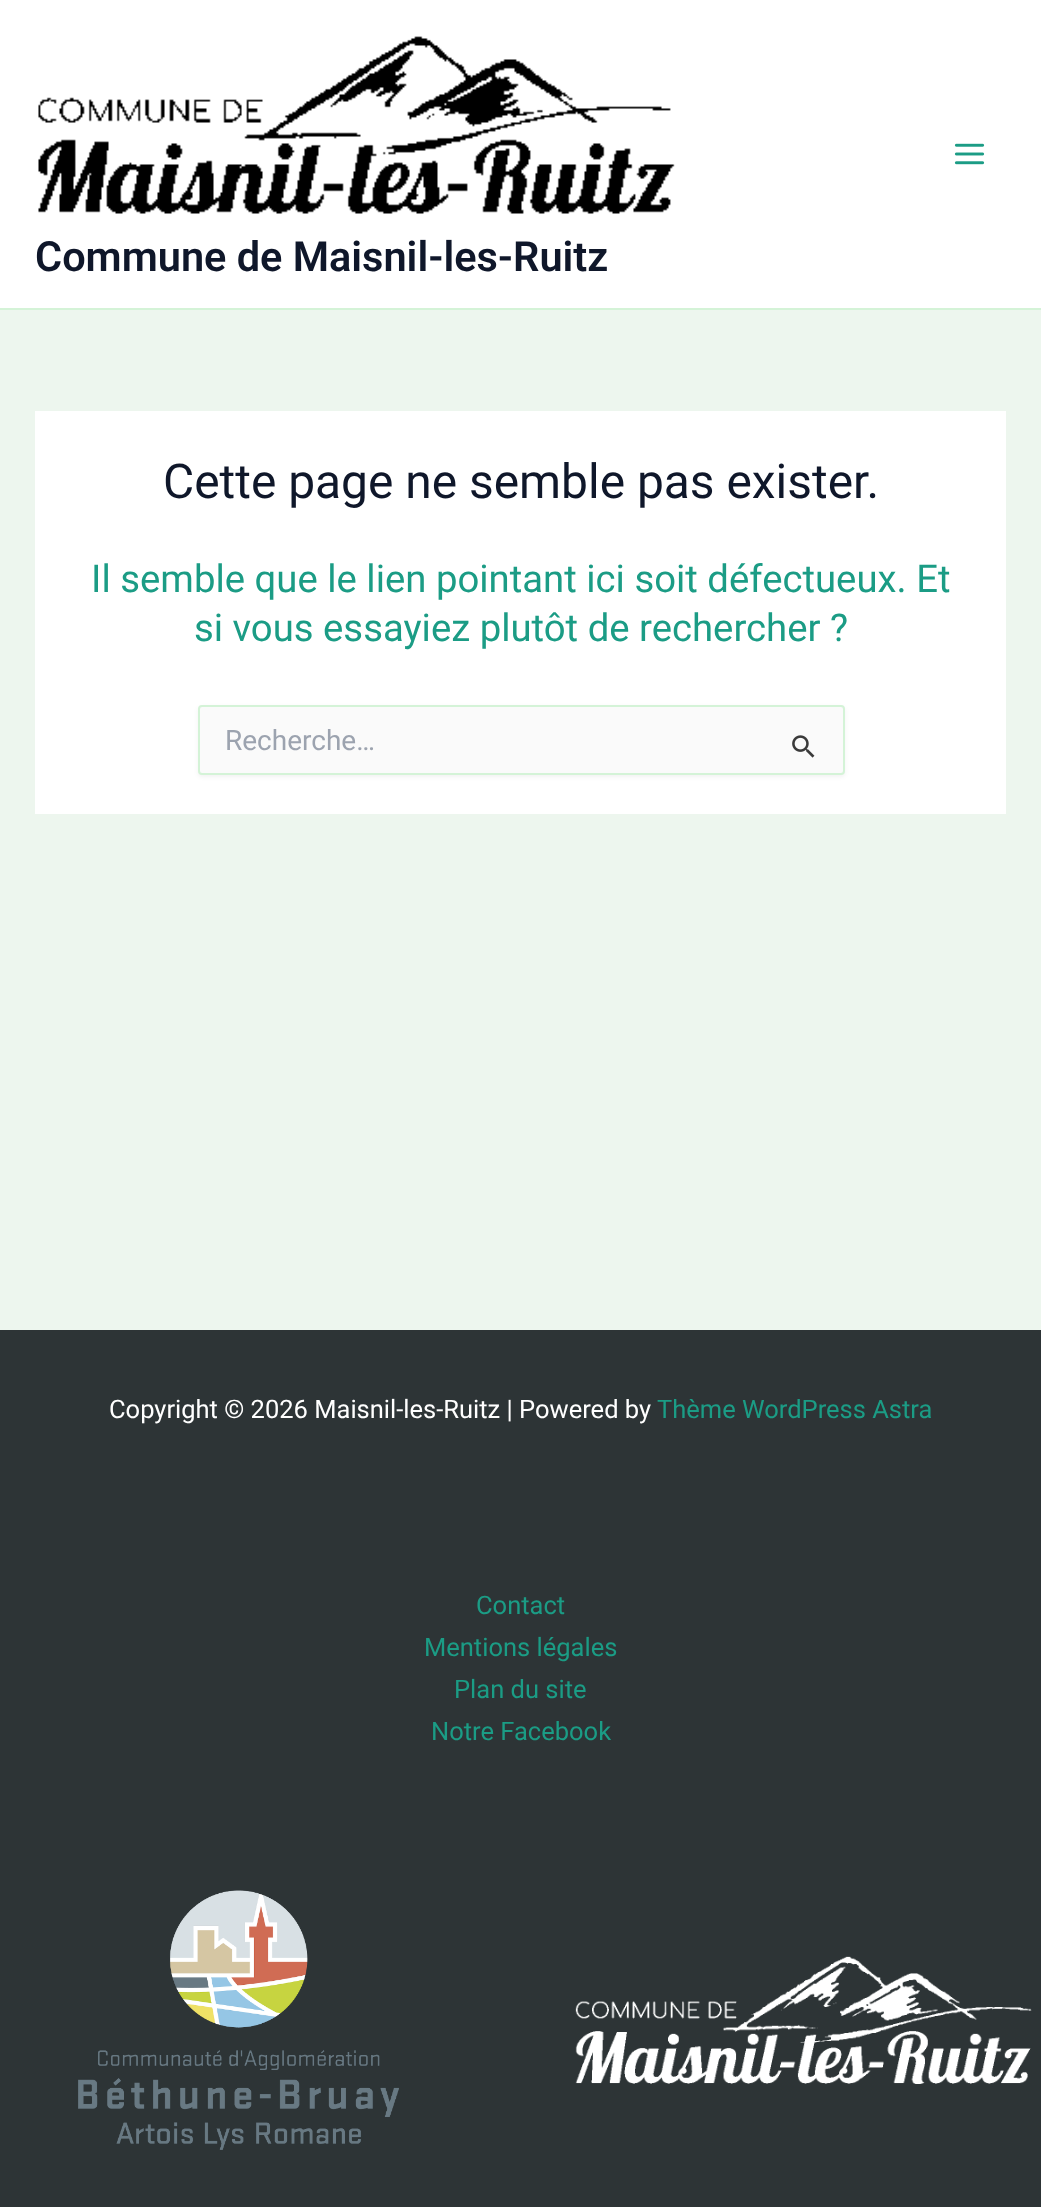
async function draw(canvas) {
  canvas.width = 1041
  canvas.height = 2207
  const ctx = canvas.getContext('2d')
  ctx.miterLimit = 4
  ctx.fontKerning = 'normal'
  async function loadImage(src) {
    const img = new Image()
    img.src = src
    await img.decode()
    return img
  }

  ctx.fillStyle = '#edf6ee'
  ctx.fillRect(0, 0, 1041, 2207)
  ctx.fillStyle = '#fff'
  ctx.fillRect(0, 0, 1041, 308)
  ctx.fillStyle = '#d4f3d7'
  ctx.fillRect(0, 308, 1041, 2)
  ctx.drawImage(await loadImage('image0.png'), 954, 143, 31, 22)
  ctx.drawImage(await loadImage('image1.png'), 38, 36, 637, 178)
  ctx.font = '600 41.5px Roboto'
  ctx.fillStyle = '#0f172a'
  ctx.fillText('Commune de Maisnil-les-Ruitz', 35, 271)
  ctx.fillStyle = '#fff'
  ctx.fillRect(35, 411, 971, 403)
  ctx.font = '47.9px Roboto'
  ctx.fillStyle = '#0f172a'
  ctx.fillText('Cette page ne semble pas exister.', 163, 498)
  ctx.font = '38.3px Roboto'
  ctx.fillStyle = '#1b9c85'
  ctx.fillText('Il semble que le lien pointant ici soit défectueux. Et', 91, 592)
  ctx.fillText('si vous essayiez plutôt de rechercher ?', 194, 641)
  ctx.fillStyle = '#0000000d'
  ctx.filter = 'blur(2px)'
  ctx.beginPath()
  ctx.roundRect(198, 707, 647, 70, 4)
  ctx.fill()
  ctx.filter = 'none'
  ctx.fillStyle = '#fafafa'
  ctx.beginPath()
  ctx.roundRect(199, 706, 645, 68, 3)
  ctx.fill()
  ctx.strokeStyle = '#d4f3d7'
  ctx.lineWidth = 2
  ctx.stroke()
  ctx.font = '28px Roboto'
  ctx.fillStyle = '#9ca3af'
  ctx.fillText('Recherche…', 225, 750)
  ctx.drawImage(await loadImage('image2.png'), 792, 735, 23, 23)
  ctx.fillStyle = '#2d3436'
  ctx.fillRect(0, 1330, 1041, 877)
  ctx.font = '25.5px Roboto'
  ctx.fillStyle = '#fff'
  ctx.fillText('Copyright © 2026 Maisnil-les-Ruitz | Powered by', 109, 1418)
  ctx.fillStyle = '#1b9c85'
  ctx.fillText('Thème WordPress Astra', 657, 1418)
  ctx.fillText('Contact', 476, 1614)
  ctx.fillText('Mentions légales', 424, 1656)
  ctx.fillText('Plan du site', 454, 1698)
  ctx.fillText('Notre Facebook', 431, 1740)
  ctx.drawImage(await loadImage('image3.png'), 78, 1890, 321, 260)
  ctx.drawImage(await loadImage('image4.png'), 575, 1956, 457, 128)
}

draw(document.querySelector('canvas'))
